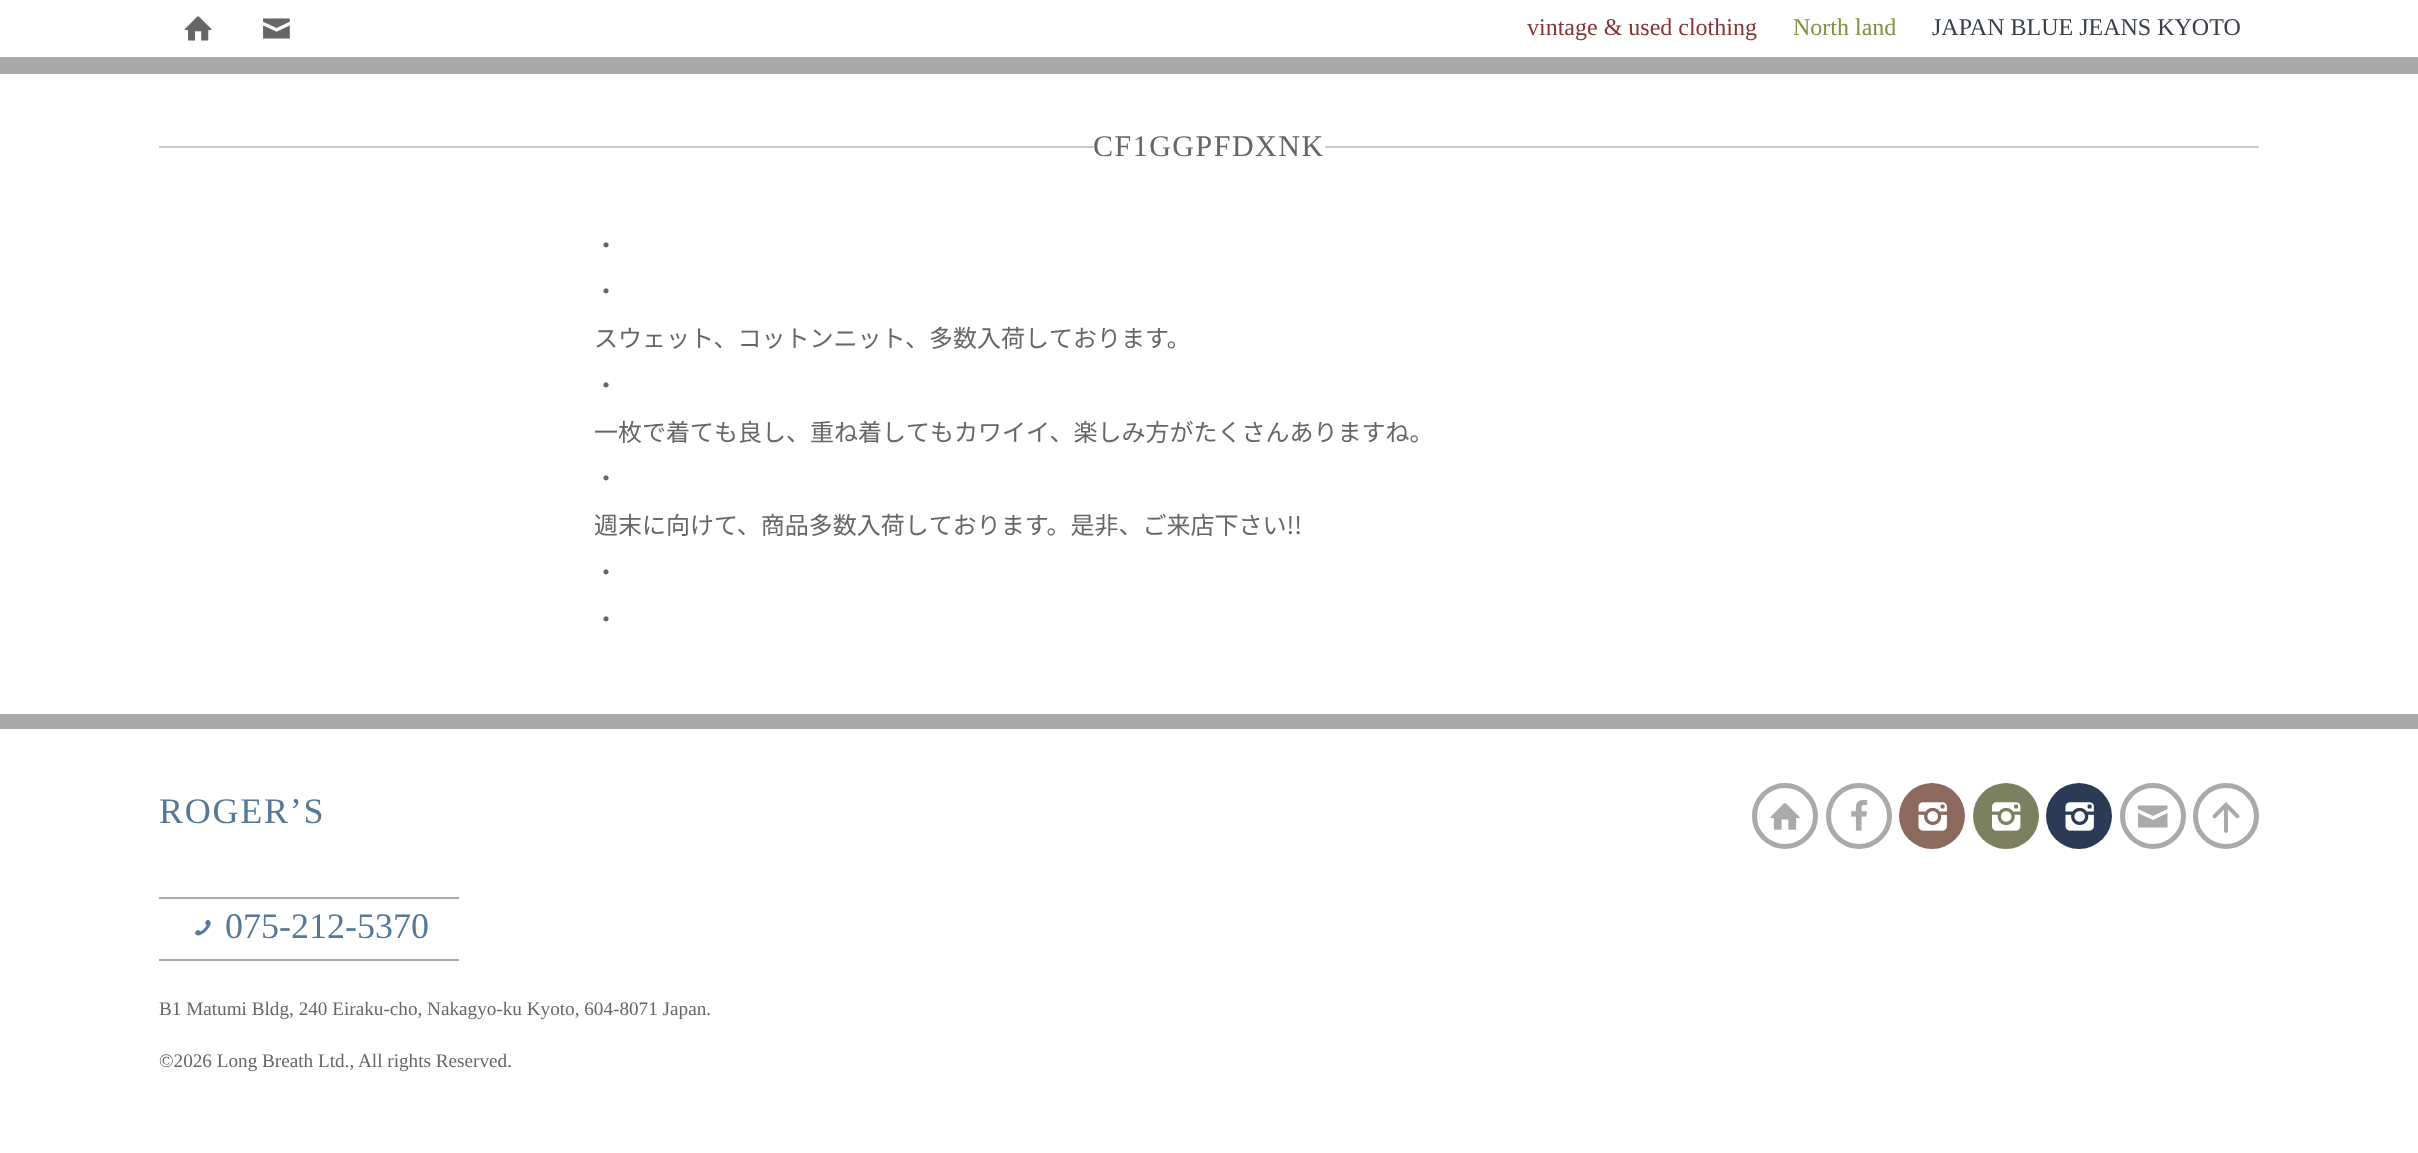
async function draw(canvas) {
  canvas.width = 2418
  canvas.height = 1153
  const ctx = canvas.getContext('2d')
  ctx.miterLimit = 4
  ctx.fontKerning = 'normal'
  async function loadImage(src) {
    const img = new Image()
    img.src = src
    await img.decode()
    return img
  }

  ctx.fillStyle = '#fff'
  ctx.fillRect(0, 0, 2418, 1153)
  ctx.fillStyle = '#aaa'
  ctx.fillRect(0, 57, 2418, 17)
  ctx.drawImage(await loadImage('image0.png'), 184, 16, 28, 25)
  ctx.drawImage(await loadImage('image1.png'), 263, 18, 27, 21)
  ctx.font = '24px Liberation Serif'
  ctx.fillStyle = '#833'
  ctx.fillText('vintage & used clothing', 1527, 35)
  ctx.fillStyle = '#7f9140'
  ctx.fillText('North land', 1793, 35)
  ctx.fillStyle = '#39404a'
  ctx.fillText('JAPAN BLUE JEANS KYOTO', 1932, 35)
  ctx.fillStyle = '#ccc'
  ctx.fillRect(159, 146, 2100, 2)
  ctx.fillStyle = '#fff'
  ctx.fillRect(1094, 146, 231, 2)
  ctx.letterSpacing = '1.5px'
  ctx.font = '30px Liberation Serif'
  ctx.fillStyle = '#666'
  ctx.fillText('CF1GGPFDXNK', 1093, 156)
  ctx.letterSpacing = '0px'
  ctx.font = '24px Noto Sans JP'
  ctx.fillText('・', 594, 254)
  ctx.fillText('・', 594, 300)
  ctx.fillText('スウェット、コットンニット、多数入荷しております。', 594, 347)
  ctx.fillText('・', 594, 394)
  ctx.fillText('一枚で着ても良し、重ね着してもカワイイ、楽しみ方がたくさんありますね。', 594, 441)
  ctx.fillText('・', 594, 487)
  ctx.fillText('週末に向けて、商品多数入荷しております。是非、ご来店下さい!!', 594, 534)
  ctx.fillText('・', 594, 581)
  ctx.fillText('・', 594, 628)
  ctx.fillStyle = '#aaa'
  ctx.fillRect(0, 714, 2418, 15)
  ctx.letterSpacing = '1.75px'
  ctx.font = '36px Liberation Serif'
  ctx.fillStyle = '#579'
  ctx.fillText('ROGER’S', 159, 823)
  ctx.fillStyle = '#aaa'
  ctx.fillRect(159, 897, 300, 2)
  ctx.fillRect(159, 959, 300, 2)
  ctx.drawImage(await loadImage('image2.png'), 195, 919, 16, 17)
  ctx.letterSpacing = '0px'
  ctx.fillStyle = '#579'
  ctx.fillText('075-212-5370', 225, 938)
  ctx.font = '19.2px Liberation Serif'
  ctx.fillStyle = '#666'
  ctx.fillText('B1 Matumi Bldg, 240 Eiraku-cho, Nakagyo-ku Kyoto, 604-8071 Japan.', 159, 1015)
  ctx.fillText('©2026 Long Breath Ltd., All rights Reserved.', 159, 1067)
  ctx.beginPath()
  ctx.arc(1785, 816, 30.5, 0, 2 * Math.PI)
  ctx.strokeStyle = '#aaa'
  ctx.lineWidth = 5
  ctx.stroke()
  ctx.drawImage(await loadImage('image3.png'), 1770, 803, 30, 27)
  ctx.beginPath()
  ctx.arc(1859, 816, 30.5, 0, 2 * Math.PI)
  ctx.stroke()
  ctx.drawImage(await loadImage('image4.png'), 1851, 800, 17, 31)
  ctx.fillStyle = '#8b695d'
  ctx.beginPath()
  ctx.arc(1932, 816, 33, 0, 2 * Math.PI)
  ctx.fill()
  ctx.drawImage(await loadImage('image5.png'), 1918, 802, 29, 29)
  ctx.fillStyle = '#7c805f'
  ctx.beginPath()
  ctx.arc(2006, 816, 33, 0, 2 * Math.PI)
  ctx.fill()
  ctx.drawImage(await loadImage('image6.png'), 1992, 802, 29, 29)
  ctx.fillStyle = '#2a3b56'
  ctx.beginPath()
  ctx.arc(2079, 816, 33, 0, 2 * Math.PI)
  ctx.fill()
  ctx.drawImage(await loadImage('image7.png'), 2065, 802, 29, 29)
  ctx.beginPath()
  ctx.arc(2153, 816, 30.5, 0, 2 * Math.PI)
  ctx.stroke()
  ctx.fillStyle = '#aaa'
  ctx.beginPath()
  ctx.moveTo(2153, 816)
  ctx.lineTo(2138, 809)
  ctx.lineTo(2138, 805.5)
  ctx.lineTo(2167.5, 805.5)
  ctx.lineTo(2167.5, 809)
  ctx.closePath()
  ctx.moveTo(2153, 820)
  ctx.lineTo(2167.5, 813)
  ctx.lineTo(2167.5, 827.5)
  ctx.lineTo(2138, 827.5)
  ctx.lineTo(2138, 813)
  ctx.closePath()
  ctx.fill()
  ctx.beginPath()
  ctx.arc(2226, 816, 30.5, 0, 2 * Math.PI)
  ctx.stroke()
  ctx.drawImage(await loadImage('image8.png'), 2212, 802, 28, 31)
}

draw(document.querySelector('canvas'))
